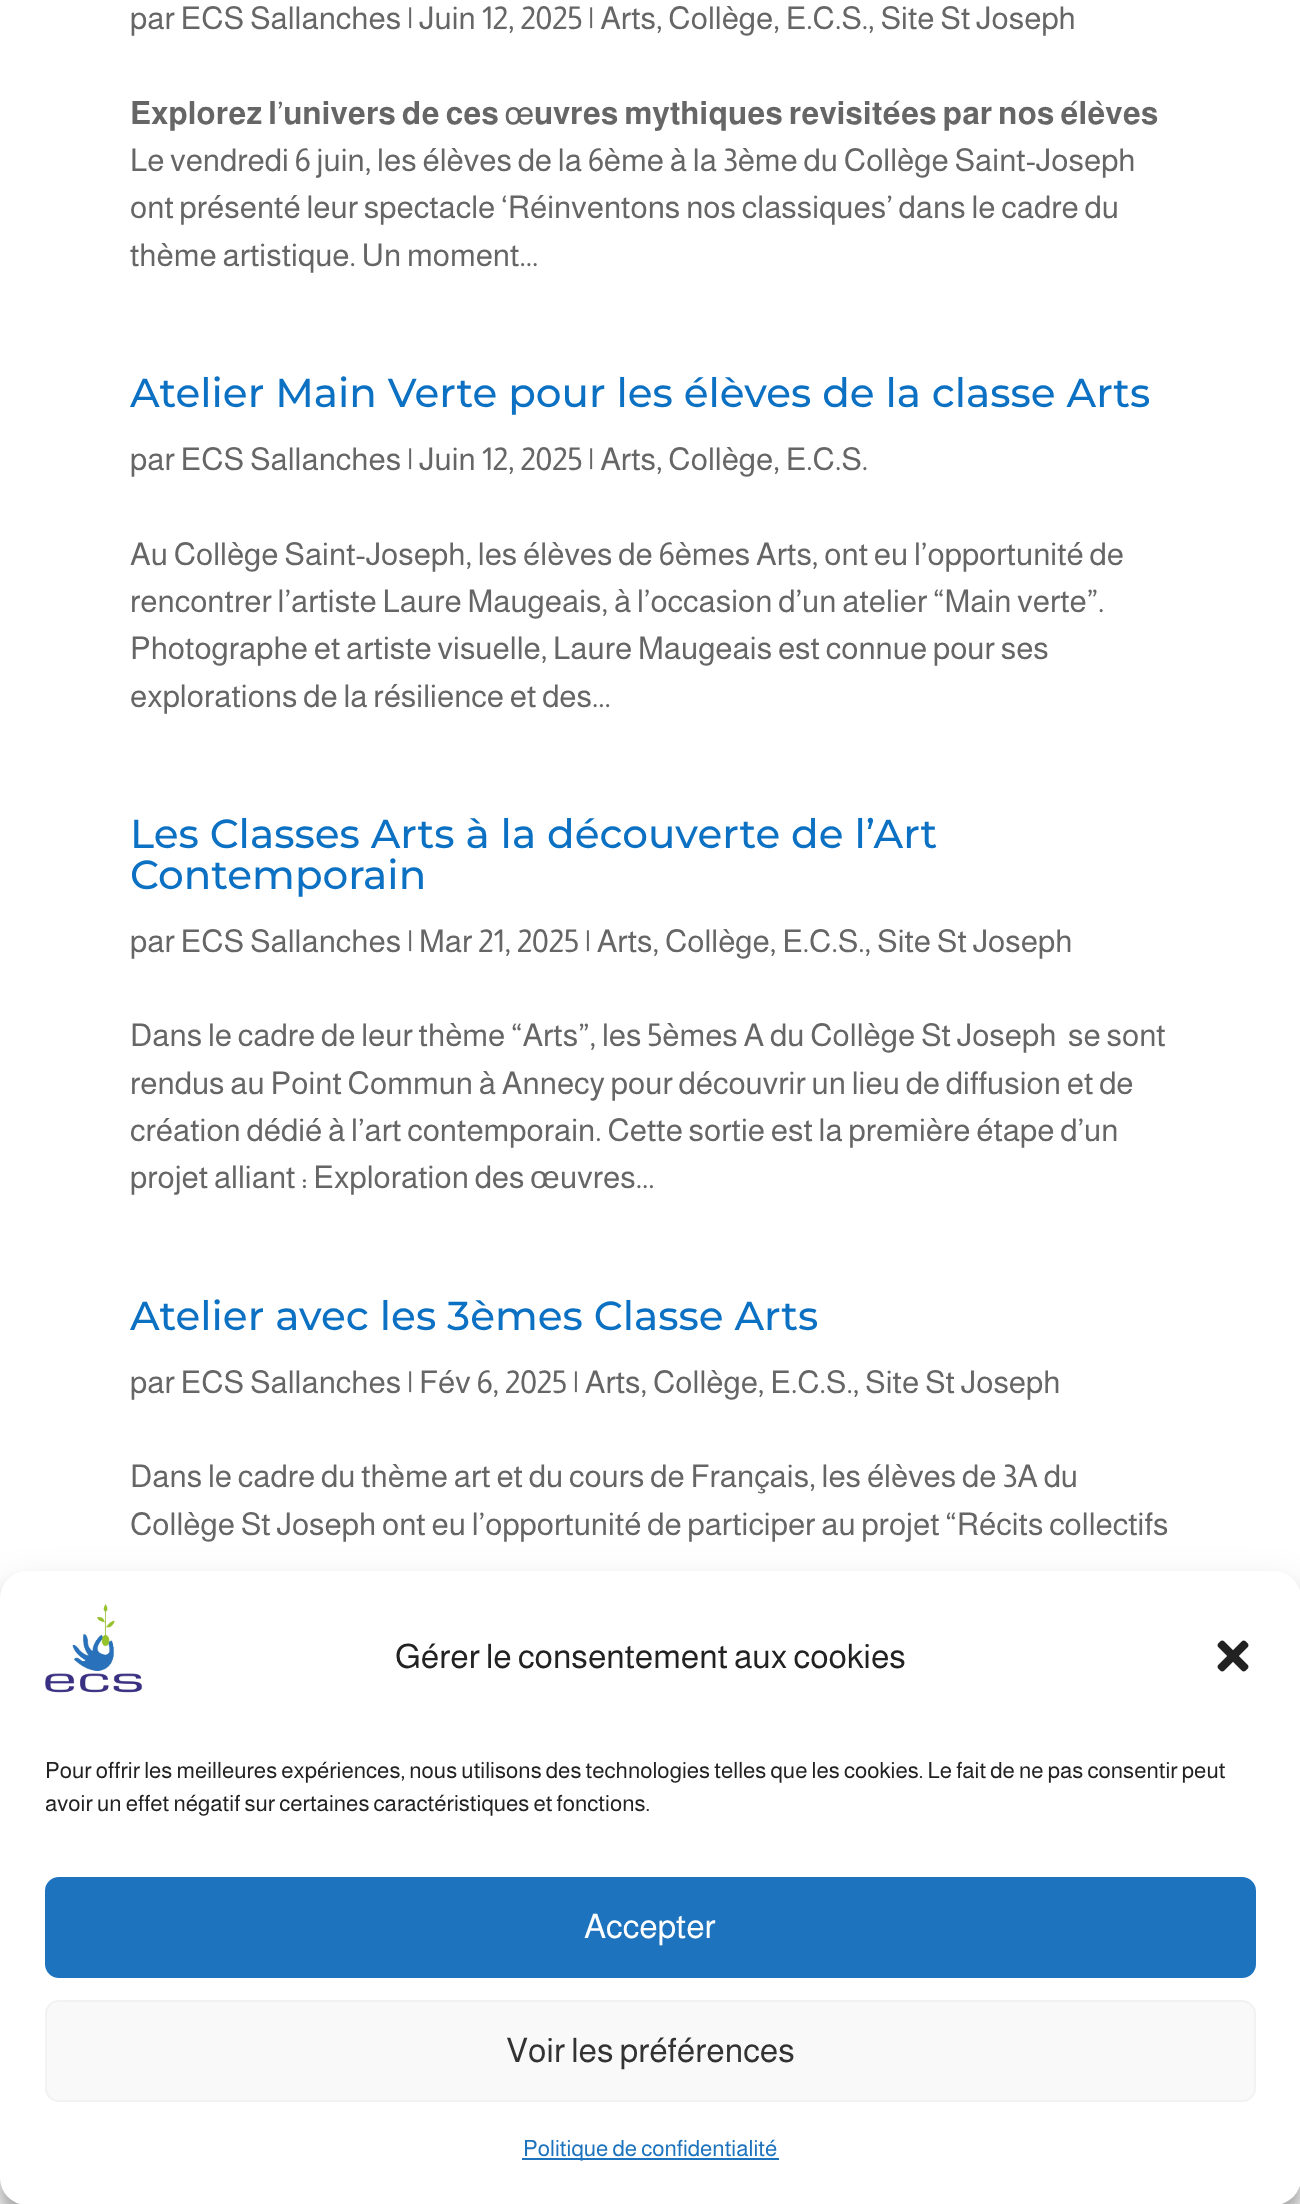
async function draw(canvas) {
  canvas.width = 1300
  canvas.height = 2204
  const ctx = canvas.getContext('2d')
  ctx.miterLimit = 4
  ctx.fontKerning = 'normal'
  async function loadImage(src) {
    const img = new Image()
    img.src = src
    await img.decode()
    return img
  }

  ctx.fillStyle = '#fff'
  ctx.fillRect(0, 0, 1300, 2204)
  ctx.font = '31.5px Almarai'
  ctx.fillStyle = '#666'
  ctx.fillText('par ECS Sallanches | Juin 12, 2025 | Arts, Collège, E.C.S., Site St Joseph', 130, 29)
  ctx.wordSpacing = '-2px'
  ctx.font = '31.5px FreeSans'
  ctx.fillText('𝐄𝐱𝐩𝐥𝐨𝐫𝐞𝐳 𝐥', 130, 124)
  ctx.wordSpacing = '0px'
  ctx.font = '31.5px Almarai'
  ctx.fillText('’', 277, 124)
  ctx.wordSpacing = '-2px'
  ctx.font = '31.5px FreeSans'
  ctx.fillText('𝐮𝐧𝐢𝐯𝐞𝐫𝐬 𝐝𝐞 𝐜𝐞𝐬 œ𝐮𝐯𝐫𝐞𝐬 𝐦𝐲𝐭𝐡𝐢𝐪𝐮𝐞𝐬 𝐫𝐞𝐯𝐢𝐬𝐢𝐭𝐞́𝐞𝐬 𝐩𝐚𝐫 𝐧𝐨𝐬 𝐞́𝐥𝐞̀𝐯𝐞𝐬', 283, 124)
  ctx.wordSpacing = '0px'
  ctx.font = '31.5px Almarai'
  ctx.fillText('Le vendredi 6 juin, les élèves de la 6ème à la 3ème du Collège Saint-Joseph', 130, 171)
  ctx.fillText('ont présenté leur spectacle ‘Réinventons nos classiques’ dans le cadre du', 130, 218)
  ctx.fillText('thème artistique. Un moment...', 130, 266)
  ctx.font = '500 40.5px Montserrat'
  ctx.fillStyle = '#0c71c3'
  ctx.fillText('Atelier Main Verte pour les élèves de la classe Arts', 130, 407)
  ctx.font = '31.5px Almarai'
  ctx.fillStyle = '#666'
  ctx.fillText('par ECS Sallanches | Juin 12, 2025 | Arts, Collège, E.C.S.', 130, 470)
  ctx.fillText('Au Collège Saint-Joseph, les élèves de 6èmes Arts, ont eu l’opportunité de', 130, 565)
  ctx.fillText('rencontrer l’artiste Laure Maugeais, à l’occasion d’un atelier “Main verte”.', 130, 612)
  ctx.fillText('Photographe et artiste visuelle, Laure Maugeais est connue pour ses', 130, 659)
  ctx.fillText('explorations de la résilience et des...', 130, 707)
  ctx.font = '500 40.5px Montserrat'
  ctx.fillStyle = '#0c71c3'
  ctx.fillText('Les Classes Arts à la découverte de l’Art', 130, 848)
  ctx.fillText('Contemporain', 130, 889)
  ctx.font = '31.5px Almarai'
  ctx.fillStyle = '#666'
  ctx.fillText('par ECS Sallanches | Mar 21, 2025 | Arts, Collège, E.C.S., Site St Joseph', 130, 952)
  ctx.fillText('Dans le cadre de leur thème “Arts”, les 5èmes A du Collège St Joseph  se sont', 130, 1046)
  ctx.fillText('rendus au Point Commun à Annecy pour découvrir un lieu de diffusion et de', 130, 1094)
  ctx.fillText('création dédié à l’art contemporain. Cette sortie est la première étape d’un', 130, 1141)
  ctx.fillText('projet alliant : Exploration des', 130, 1188)
  ctx.font = '31.5px Liberation Sans'
  ctx.fillText('œ', 530, 1188)
  ctx.font = '31.5px Almarai'
  ctx.fillText('uvres...', 560, 1188)
  ctx.font = '500 40.5px Montserrat'
  ctx.fillStyle = '#0c71c3'
  ctx.fillText('Atelier avec les 3èmes Classe Arts', 130, 1330)
  ctx.font = '31.5px Almarai'
  ctx.fillStyle = '#666'
  ctx.fillText('par ECS Sallanches | Fév 6, 2025 | Arts, Collège, E.C.S., Site St Joseph', 130, 1393)
  ctx.fillText('Dans le cadre du thème art et du cours de Français, les élèves de 3A du', 130, 1487)
  ctx.fillText('Collège St Joseph ont eu l’opportunité de participer au projet “Récits collectifs', 130, 1535)
  ctx.fillStyle = '#0000003b'
  ctx.filter = 'blur(7px)'
  ctx.beginPath()
  ctx.roundRect(0, 1584, 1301, 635, 27)
  ctx.fill()
  ctx.filter = 'none'
  ctx.fillStyle = '#00000030'
  ctx.filter = 'blur(22.5px)'
  ctx.beginPath()
  ctx.roundRect(0, 1593, 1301, 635, 27)
  ctx.fill()
  ctx.filter = 'none'
  ctx.fillStyle = '#fff'
  ctx.beginPath()
  ctx.roundRect(0, 1571, 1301, 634, 27)
  ctx.fill()
  ctx.drawImage(await loadImage('image0.png'), 45, 1604, 98, 89)
  ctx.font = '33.75px Almarai'
  ctx.fillStyle = '#222'
  ctx.fillText('Gérer le consentement aux cookies', 395, 1668)
  ctx.drawImage(await loadImage('image1.png'), 1217, 1640, 32, 32)
  ctx.font = '22.5px Almarai'
  ctx.fillText('Pour offrir les meilleures expériences, nous utilisons des technologies telles que les cookies. Le fait de ne pas consentir peut', 45, 1778)
  ctx.fillText('avoir un effet négatif sur certaines caractéristiques et fonctions.', 45, 1811)
  ctx.fillStyle = '#1e73be'
  ctx.beginPath()
  ctx.roundRect(46, 1878, 1209, 99, 13)
  ctx.fill()
  ctx.strokeStyle = '#1e73be'
  ctx.lineWidth = 2
  ctx.stroke()
  ctx.font = '33.75px Almarai'
  ctx.fillStyle = '#fff'
  ctx.fillText('Accepter', 584, 1938)
  ctx.fillStyle = '#f9f9f9'
  ctx.beginPath()
  ctx.roundRect(46, 2001, 1209, 100, 13)
  ctx.fill()
  ctx.strokeStyle = '#f2f2f2'
  ctx.stroke()
  ctx.fillStyle = '#333'
  ctx.fillText('Voir les préférences', 506, 2062)
  ctx.fillStyle = '#1e73be'
  ctx.fillRect(522, 2158, 257, 2)
  ctx.font = '22.5px Almarai'
  ctx.fillText('Politique de confidentialité', 523, 2156)
}

draw(document.querySelector('canvas'))
